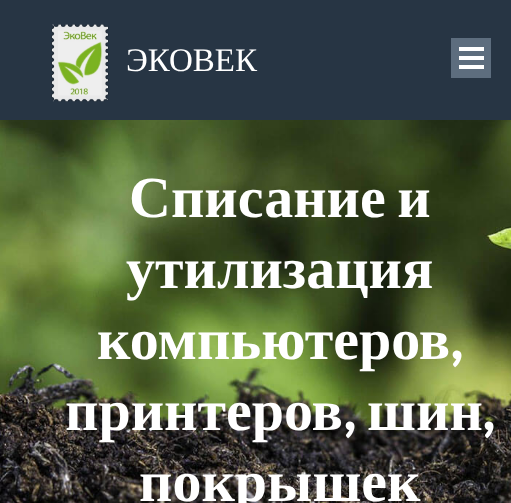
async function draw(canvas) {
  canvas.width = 511
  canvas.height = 503
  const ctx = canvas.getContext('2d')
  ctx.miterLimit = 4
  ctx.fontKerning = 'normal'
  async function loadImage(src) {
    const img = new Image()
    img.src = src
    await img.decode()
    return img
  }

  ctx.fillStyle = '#fff'
  ctx.fillRect(0, 0, 511, 503)
  ctx.fillStyle = '#273544'
  ctx.fillRect(0, 0, 511, 120)
  ctx.drawImage(await loadImage('image0.png'), 51, 24, 58, 78)
  ctx.font = '33px Liberation Serif'
  ctx.fillStyle = '#fff'
  ctx.fillText('ЭКОВЕК', 126, 71)
  ctx.fillStyle = '#5d6d7e'
  ctx.fillRect(451, 38, 40, 40)
  ctx.fillStyle = '#fff'
  ctx.fillRect(459, 47, 25, 4)
  ctx.fillRect(459, 56, 25, 4)
  ctx.fillRect(459, 65, 25, 4)
  ctx.drawImage(await loadImage('image1.png'), 0, 120, 511, 383)
  ctx.wordSpacing = '-3px'
  ctx.font = 'bold 58px Liberation Serif'
  ctx.fillText('Списание и', 129, 217)
  ctx.wordSpacing = '0px'
  ctx.fillText('утилизация', 126, 288)
  ctx.fillText('компьютеров', 97, 359)
  ctx.font = 'bold 58px Lato'
  ctx.fillText(',', 450, 359)
  ctx.font = 'bold 58px Liberation Serif'
  ctx.fillText('принтеров', 65, 430)
  ctx.font = 'bold 58px Lato'
  ctx.fillText(',', 343, 430)
  ctx.font = 'bold 58px Liberation Serif'
  ctx.fillText('шин', 367, 430)
  ctx.font = 'bold 58px Lato'
  ctx.fillText(',', 482, 430)
  ctx.font = 'bold 58px Liberation Serif'
  ctx.fillText('покрышек', 139, 501)
}

draw(document.querySelector('canvas'))
